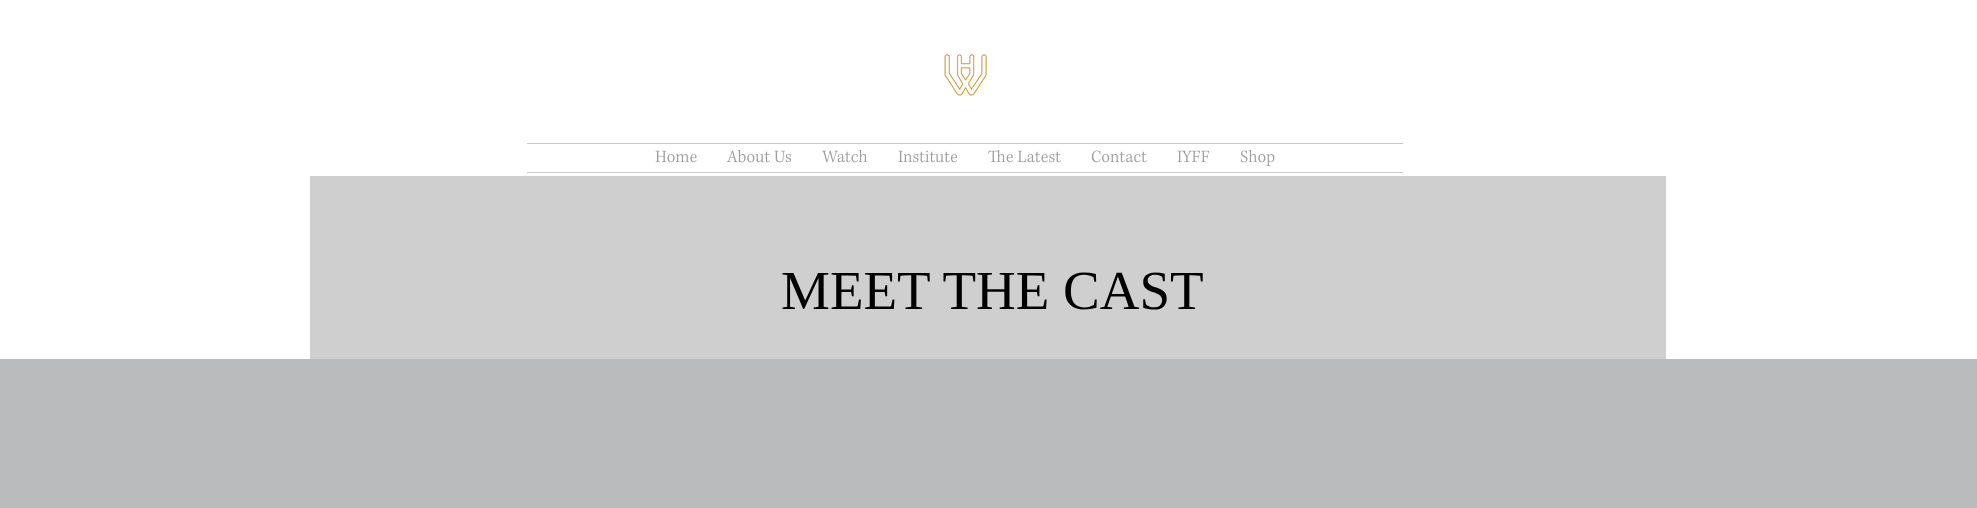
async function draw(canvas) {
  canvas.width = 1977
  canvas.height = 508
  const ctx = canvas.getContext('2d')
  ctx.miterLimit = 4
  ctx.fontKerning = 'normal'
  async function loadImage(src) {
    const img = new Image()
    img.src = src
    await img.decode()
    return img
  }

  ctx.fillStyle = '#fff'
  ctx.fillRect(0, 0, 1977, 508)
  ctx.drawImage(await loadImage('image0.png'), 944, 54, 43, 42)
  ctx.fillStyle = '#cacaca'
  ctx.fillRect(527, 143, 876, 1)
  ctx.fillRect(527, 172, 876, 1)
  ctx.drawImage(await loadImage('image1.png'), 655, 150, 42, 13)
  ctx.drawImage(await loadImage('image2.png'), 726, 150, 65, 13)
  ctx.drawImage(await loadImage('image3.png'), 822, 150, 46, 13)
  ctx.drawImage(await loadImage('image4.png'), 898, 150, 60, 13)
  ctx.drawImage(await loadImage('image5.png'), 988, 150, 73, 13)
  ctx.drawImage(await loadImage('image6.png'), 1091, 150, 56, 13)
  ctx.drawImage(await loadImage('image7.png'), 1177, 150, 33, 13)
  ctx.drawImage(await loadImage('image8.png'), 1240, 150, 35, 17)
  ctx.fillStyle = '#cfcfcf'
  ctx.fillRect(310, 176, 1356, 183)
  ctx.font = '55px Liberation Serif'
  ctx.fillStyle = '#000'
  ctx.fillText('MEET THE CAST', 781, 309)
  ctx.fillStyle = '#b9bbbd'
  ctx.fillRect(0, 359, 1977, 149)
}

draw(document.querySelector('canvas'))
